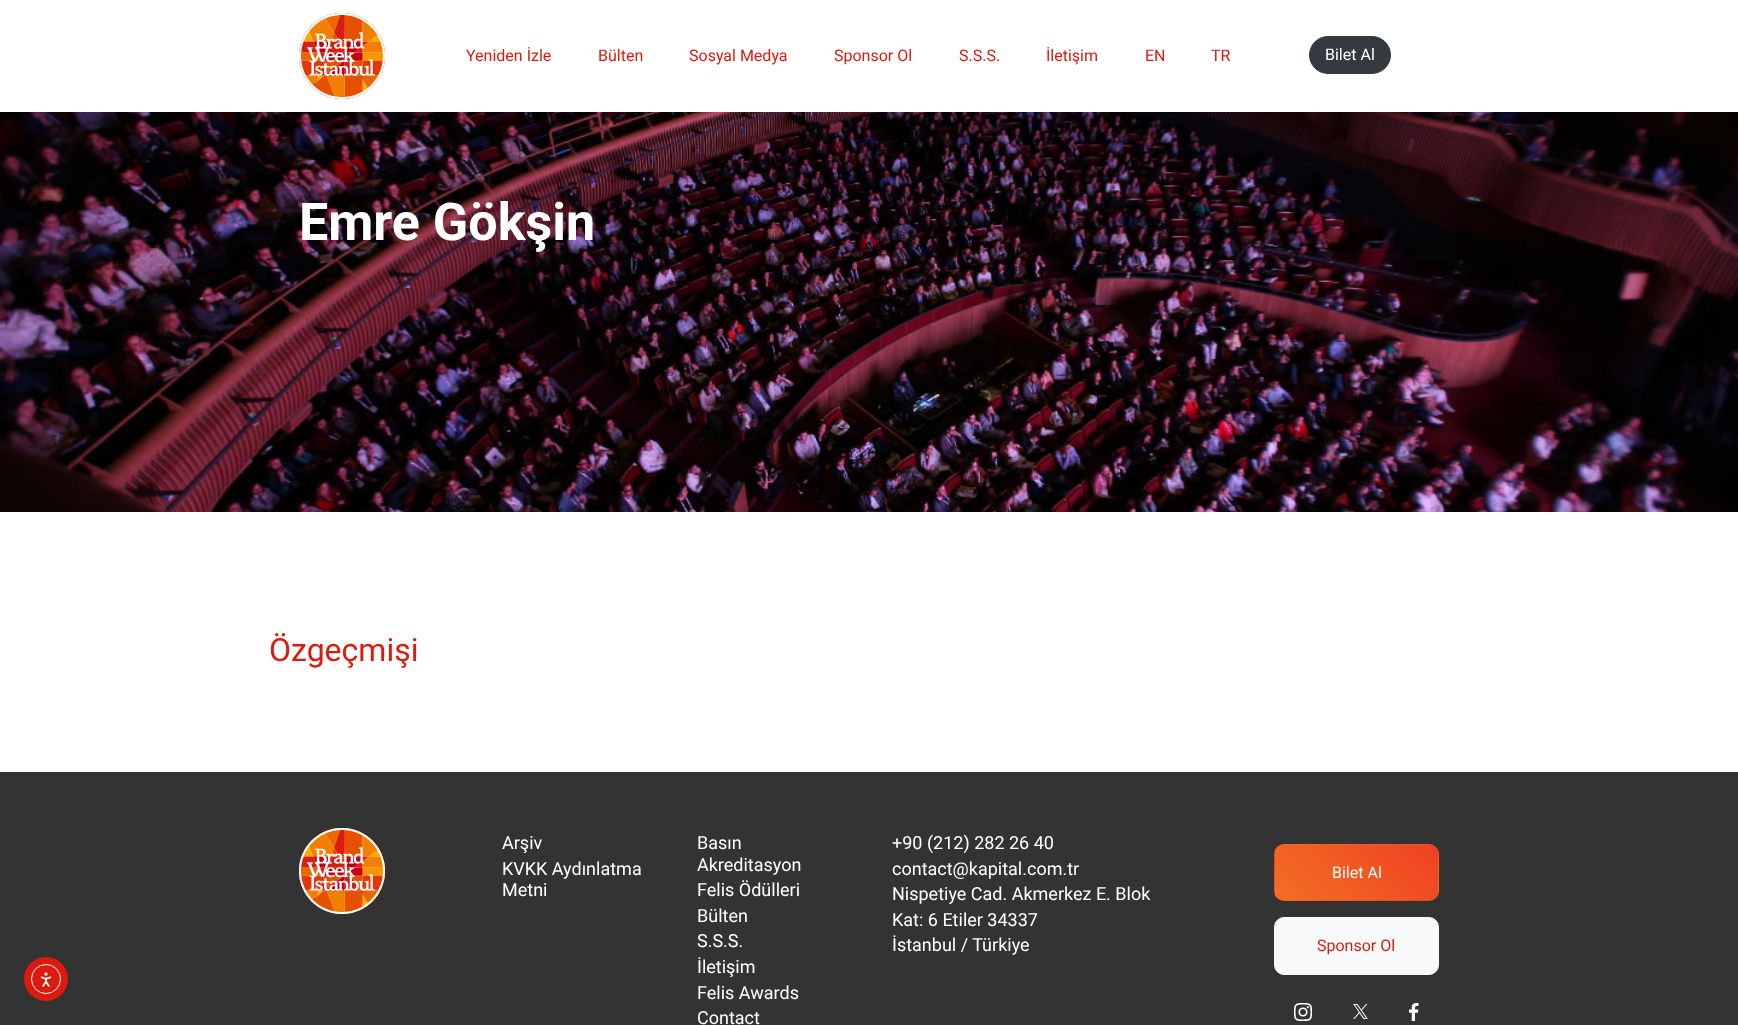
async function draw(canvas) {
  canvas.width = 1738
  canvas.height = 1025
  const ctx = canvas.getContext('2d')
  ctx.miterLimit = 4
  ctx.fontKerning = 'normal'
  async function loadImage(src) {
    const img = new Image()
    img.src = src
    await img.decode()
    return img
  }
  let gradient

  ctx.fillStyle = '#fff'
  ctx.fillRect(0, 0, 1738, 1025)
  ctx.drawImage(await loadImage('image0.png'), 299, 13, 86, 86)
  ctx.font = '16px Roboto'
  ctx.fillStyle = '#dd1a0c'
  ctx.fillText('Yeniden İzle', 466, 61)
  ctx.fillText('Bülten', 598, 61)
  ctx.fillText('Sosyal Medya', 689, 61)
  ctx.fillText('Sponsor Ol', 834, 61)
  ctx.fillText('S.S.S.', 959, 61)
  ctx.fillText('İletişim', 1046, 61)
  ctx.fillText('EN', 1145, 61)
  ctx.fillText('TR', 1211, 61)
  ctx.fillStyle = '#343a40'
  ctx.beginPath()
  ctx.roundRect(1309.5, 36.5, 81, 37, 18.5)
  ctx.fill()
  ctx.strokeStyle = '#343a40'
  ctx.stroke()
  ctx.fillStyle = '#fff'
  ctx.fillText('Bilet Al', 1325, 60)
  ctx.drawImage(await loadImage('image1.png'), 0, 112, 1738, 400)
  ctx.font = 'bold 52px Roboto'
  ctx.fillText('Emre Gökşin', 299, 240)
  ctx.font = '32px Roboto'
  ctx.fillStyle = '#dd1a0c'
  ctx.fillText('Özgeçmişi', 269, 661)
  ctx.fillStyle = '#333'
  ctx.fillRect(0, 772, 1738, 253)
  ctx.fillStyle = '#dd1a0c'
  ctx.beginPath()
  ctx.arc(46, 979, 22, 0, 2 * Math.PI)
  ctx.fill()
  ctx.beginPath()
  ctx.arc(46, 979, 14.5, 0, 2 * Math.PI)
  ctx.strokeStyle = '#fff'
  ctx.stroke()
  ctx.drawImage(await loadImage('image2.png'), 40, 972, 12, 15)
  ctx.drawImage(await loadImage('image3.png'), 299, 828, 86, 86)
  ctx.font = '18px Roboto'
  ctx.fillStyle = '#fff'
  ctx.fillText('Arşiv', 502, 849)
  ctx.fillText('KVKK Aydınlatma', 502, 875)
  ctx.fillText('Metni', 502, 896)
  ctx.fillText('Basın', 697, 849)
  ctx.fillText('Akreditasyon', 697, 871)
  ctx.fillText('Felis Ödülleri', 697, 896)
  ctx.fillText('Bülten', 697, 922)
  ctx.fillText('S.S.S.', 697, 947)
  ctx.fillText('İletişim', 697, 973)
  ctx.fillText('Felis Awards', 697, 999)
  ctx.fillText('Contact', 697, 1024)
  ctx.fillText('+90 (212) 282 26 40', 892, 849)
  ctx.fillText('contact@kapital.com.tr', 892, 875)
  ctx.fillText('Nispetiye Cad. Akmerkez E. Blok', 892, 900)
  ctx.fillText('Kat: 6 Etiler 34337', 892, 926)
  ctx.fillText('İstanbul / Türkiye', 892, 951)
  ctx.save()
  ctx.beginPath()
  ctx.roundRect(1274, 844, 165, 57, 10)
  ctx.clip()
  gradient = ctx.createLinearGradient(1302, 872, 1411, 763)
  gradient.addColorStop(0, '#f36f22')
  gradient.addColorStop(1, '#ef4123')
  ctx.fillStyle = gradient
  ctx.fillRect(1275, 844, 163, 1)
  gradient = ctx.createLinearGradient(1139, 927, 1248, 818)
  gradient.addColorStop(0, '#f36f22')
  gradient.addColorStop(1, '#ef4123')
  ctx.fillStyle = gradient
  ctx.fillRect(1274, 845, 1, 55)
  gradient = ctx.createLinearGradient(1302, 927, 1411, 818)
  gradient.addColorStop(0, '#f36f22')
  gradient.addColorStop(1, '#ef4123')
  ctx.fillStyle = gradient
  ctx.fillRect(1275, 845, 163, 55)
  gradient = ctx.createLinearGradient(1465, 927, 1574, 818)
  gradient.addColorStop(0, '#f36f22')
  gradient.addColorStop(1, '#ef4123')
  ctx.fillStyle = gradient
  ctx.fillRect(1438, 845, 1, 55)
  gradient = ctx.createLinearGradient(1302, 982, 1411, 873)
  gradient.addColorStop(0, '#f36f22')
  gradient.addColorStop(1, '#ef4123')
  ctx.fillStyle = gradient
  ctx.fillRect(1275, 900, 163, 1)
  ctx.restore()
  ctx.font = '16px Roboto'
  ctx.fillText('Bilet Al', 1332, 878)
  ctx.fillStyle = '#f8f9fa'
  ctx.beginPath()
  ctx.roundRect(1274.5, 917.5, 164, 57, 9.5)
  ctx.fill()
  ctx.strokeStyle = '#f8f9fa'
  ctx.stroke()
  ctx.fillStyle = '#dd1a0c'
  ctx.fillText('Sponsor Ol', 1317, 951)
  ctx.drawImage(await loadImage('image4.png'), 1294, 1003, 18, 18)
  ctx.drawImage(await loadImage('image5.png'), 1353, 1004, 15, 15)
  ctx.drawImage(await loadImage('image6.png'), 1409, 1003, 10, 18)
}

draw(document.querySelector('canvas'))
